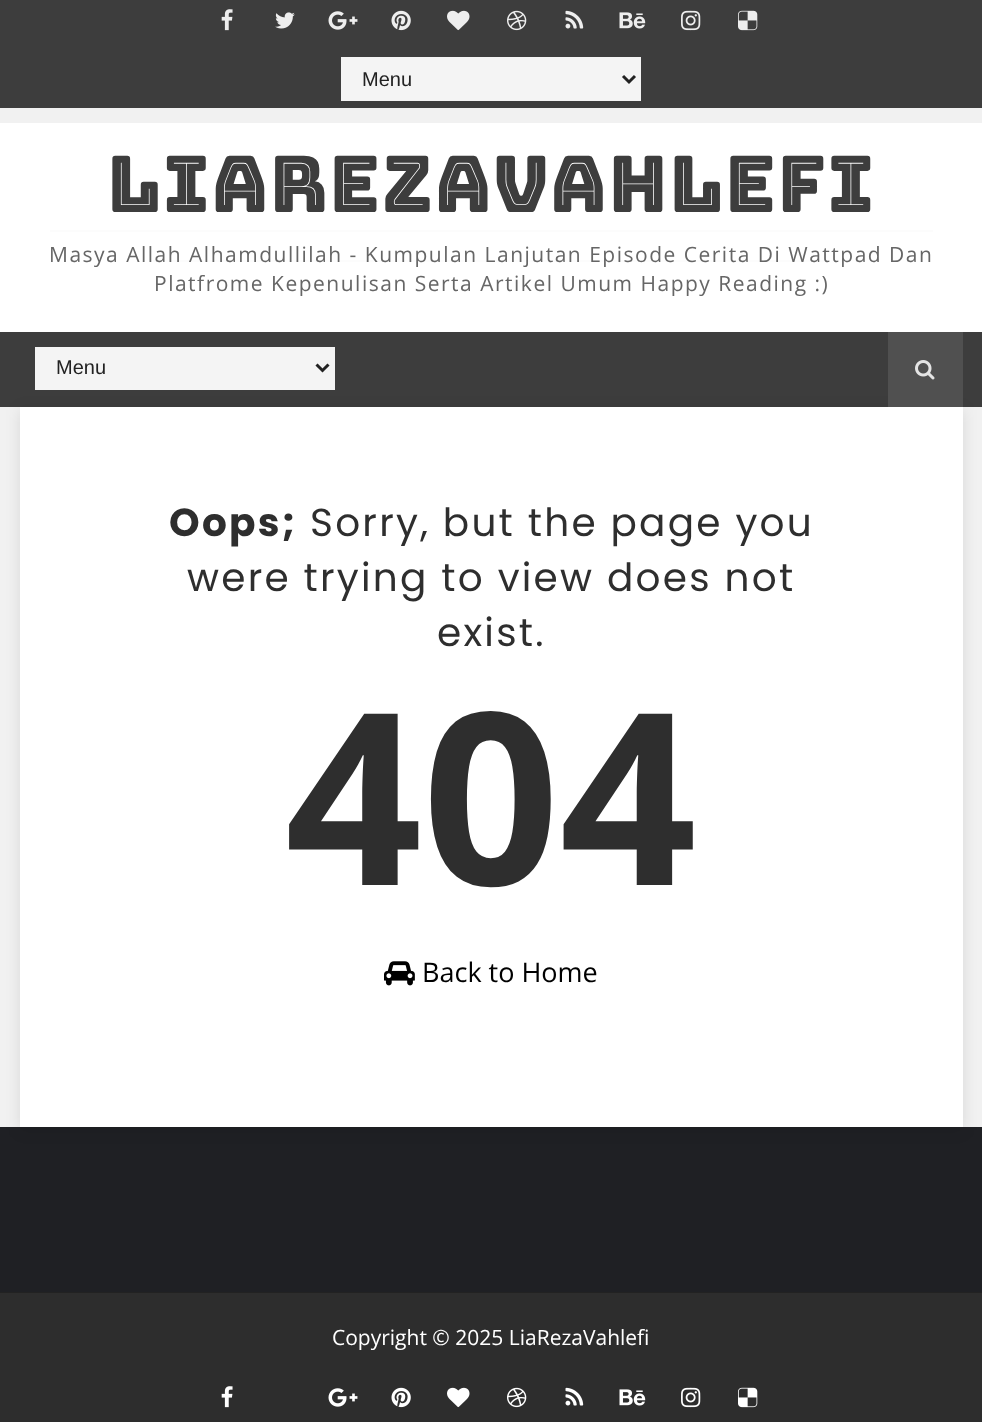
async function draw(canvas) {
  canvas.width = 982
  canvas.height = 1422
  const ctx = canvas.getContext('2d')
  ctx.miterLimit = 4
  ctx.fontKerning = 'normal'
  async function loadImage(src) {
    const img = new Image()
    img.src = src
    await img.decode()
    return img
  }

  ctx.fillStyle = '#f1f1f1'
  ctx.fillRect(0, 0, 982, 1422)
  ctx.fillStyle = '#3d3d3d'
  ctx.fillRect(0, 0, 982, 108)
  ctx.drawImage(await loadImage('image0.png'), 221, 9, 12, 22)
  ctx.drawImage(await loadImage('image1.png'), 275, 12, 20, 17)
  ctx.drawImage(await loadImage('image2.png'), 328, 11, 30, 19)
  ctx.drawImage(await loadImage('image3.png'), 391, 10, 20, 21)
  ctx.drawImage(await loadImage('image4.png'), 447, 10, 23, 21)
  ctx.drawImage(await loadImage('image5.png'), 507, 10, 20, 21)
  ctx.drawImage(await loadImage('image6.png'), 565, 10, 19, 19)
  ctx.drawImage(await loadImage('image7.png'), 619, 12, 27, 17)
  ctx.drawImage(await loadImage('image8.png'), 681, 10, 20, 21)
  ctx.drawImage(await loadImage('image9.png'), 738, 10, 20, 21)
  ctx.fillStyle = '#f4f4f4'
  ctx.fillRect(341, 57, 300, 44)
  ctx.beginPath()
  ctx.moveTo(623, 76)
  ctx.lineTo(629, 82)
  ctx.lineTo(635, 76)
  ctx.strokeStyle = '#222'
  ctx.lineWidth = 3
  ctx.stroke()
  ctx.font = '20px Liberation Sans'
  ctx.fillStyle = '#222'
  ctx.fillText('Menu', 362, 86)
  ctx.fillStyle = '#fff'
  ctx.fillRect(0, 123, 982, 209)
  ctx.letterSpacing = '1.5px'
  ctx.font = '78px Bungee Inline'
  ctx.fillStyle = '#3d3d3d'
  ctx.fillText('LIAREZAVAHLEFI', 107, 212)
  ctx.fillStyle = '#fcfcfc'
  ctx.fillRect(153, 260, 677, 2)
  ctx.font = '21px Open Sans'
  ctx.fillStyle = '#666'
  ctx.fillText('Masya Allah Alhamdullilah - Kumpulan Lanjutan Episode Cerita Di Wattpad Dan', 49, 262)
  ctx.fillStyle = '#fcfcfc'
  ctx.fillRect(50, 230, 883, 2)
  ctx.fillStyle = '#666'
  ctx.fillText('Platfrome Kepenulisan Serta Artikel Umum Happy Reading :)', 154, 291)
  ctx.fillStyle = '#3d3d3d'
  ctx.fillRect(0, 332, 982, 75)
  ctx.fillStyle = '#1f2024'
  ctx.fillRect(0, 1127, 982, 165)
  ctx.fillStyle = '#0000001a'
  ctx.filter = 'blur(7.5px)'
  ctx.beginPath()
  ctx.rect(20, 410, 943, 720)
  ctx.fill()
  ctx.filter = 'none'
  ctx.fillStyle = '#f4f4f4'
  ctx.fillRect(35, 347, 300, 43)
  ctx.beginPath()
  ctx.moveTo(316.5, 364.5)
  ctx.lineTo(322.5, 370.5)
  ctx.lineTo(328.5, 364.5)
  ctx.stroke()
  ctx.letterSpacing = '0px'
  ctx.font = '20px Liberation Sans'
  ctx.fillStyle = '#222'
  ctx.fillText('Menu', 56, 374)
  ctx.fillStyle = '#505050'
  ctx.fillRect(888, 332, 75, 75)
  ctx.drawImage(await loadImage('image10.png'), 915, 360, 20, 20)
  ctx.fillStyle = '#fff'
  ctx.fillRect(20, 407, 943, 720)
  ctx.letterSpacing = '2.25px'
  ctx.font = 'bold 39px Poppins'
  ctx.fillStyle = '#2e2e2e'
  ctx.fillText('Oops;', 169, 536)
  ctx.font = '39px Poppins'
  ctx.fillText('Sorry, but the page you', 310, 536)
  ctx.fillText('were trying to view does not', 187, 591)
  ctx.fillText('exist.', 437, 646)
  ctx.letterSpacing = '0px'
  ctx.font = 'bold 240px Open Sans'
  ctx.fillText('404', 285, 885)
  ctx.drawImage(await loadImage('image11.png'), 384, 961, 31, 25)
  ctx.font = '27px Open Sans'
  ctx.fillStyle = '#000'
  ctx.fillText('Back to Home', 422, 982)
  ctx.fillStyle = '#222'
  ctx.fillRect(0, 1292, 982, 1)
  ctx.fillStyle = '#2d2d2d'
  ctx.fillRect(0, 1293, 982, 129)
  ctx.font = '21px Open Sans'
  ctx.fillStyle = '#fff'
  ctx.fillText('Copyright © 2025 LiaRezaVahlefi', 332, 1345)
  ctx.drawImage(await loadImage('image12.png'), 221, 1386, 12, 22)
  ctx.drawImage(await loadImage('image13.png'), 328, 1388, 30, 19)
  ctx.drawImage(await loadImage('image14.png'), 391, 1387, 20, 21)
  ctx.drawImage(await loadImage('image15.png'), 447, 1387, 23, 21)
  ctx.drawImage(await loadImage('image16.png'), 507, 1387, 20, 21)
  ctx.drawImage(await loadImage('image17.png'), 565, 1387, 19, 19)
  ctx.drawImage(await loadImage('image18.png'), 619, 1389, 27, 17)
  ctx.drawImage(await loadImage('image19.png'), 681, 1387, 20, 21)
  ctx.drawImage(await loadImage('image20.png'), 738, 1387, 20, 21)
}

draw(document.querySelector('canvas'))
